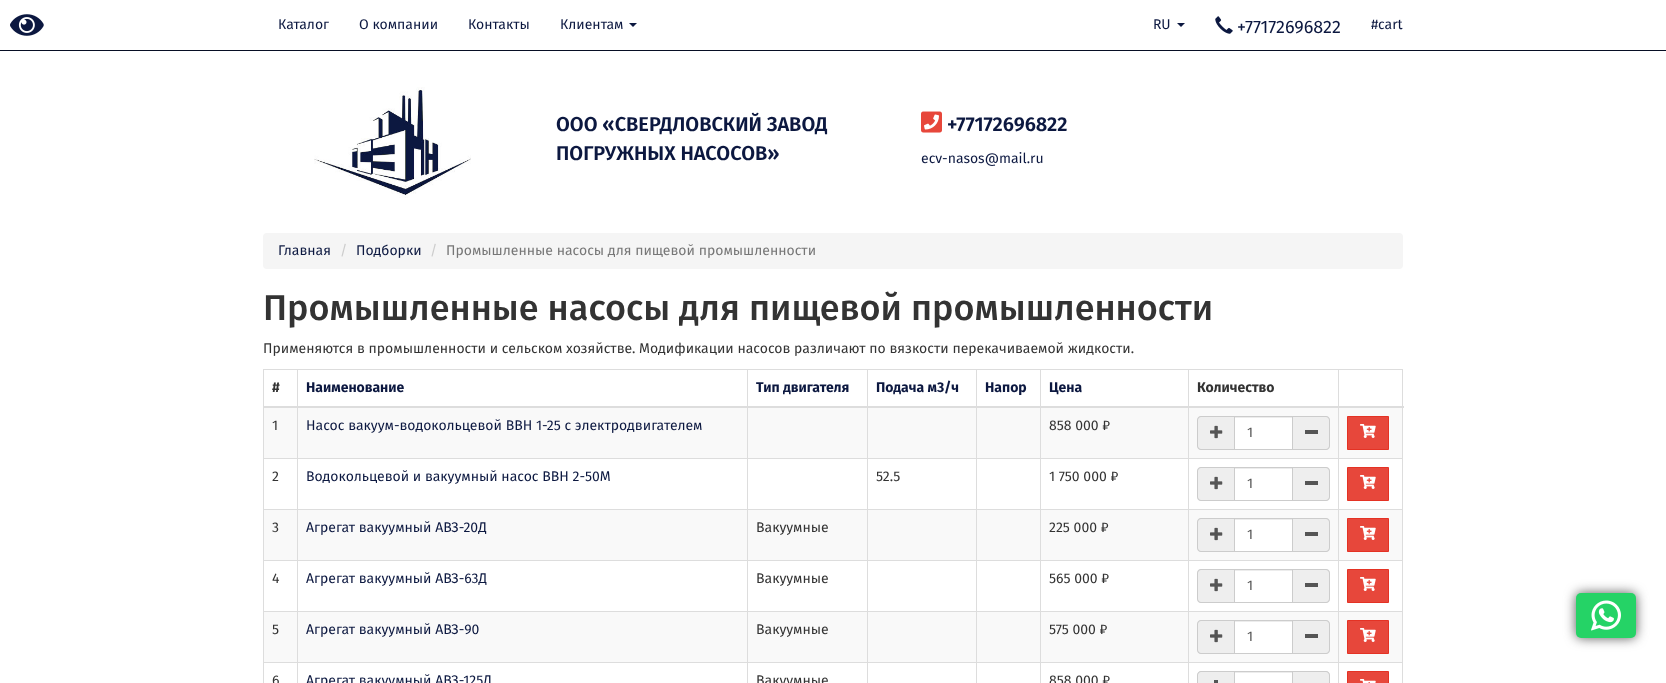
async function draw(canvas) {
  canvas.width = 1666
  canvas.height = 683
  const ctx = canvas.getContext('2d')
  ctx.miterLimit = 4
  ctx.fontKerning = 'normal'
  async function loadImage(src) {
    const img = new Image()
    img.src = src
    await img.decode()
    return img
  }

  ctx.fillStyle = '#fff'
  ctx.fillRect(0, 0, 1666, 683)
  ctx.drawImage(await loadImage('image0.png'), 10, 14, 34, 22)
  ctx.fillStyle = '#070e24'
  ctx.fillRect(0, 50, 1666, 1)
  ctx.font = '14px Fira Sans'
  ctx.fillStyle = '#0c1840'
  ctx.fillText('Каталог', 278, 29)
  ctx.fillText('О компании', 359, 29)
  ctx.fillText('Контакты', 468, 29)
  ctx.fillText('Клиентам', 560, 29)
  ctx.beginPath()
  ctx.moveTo(629, 23)
  ctx.lineTo(637, 23)
  ctx.lineTo(633, 27)
  ctx.closePath()
  ctx.fill()
  ctx.fillText('RU', 1153, 29)
  ctx.beginPath()
  ctx.moveTo(1177, 23)
  ctx.lineTo(1185, 23)
  ctx.lineTo(1181, 27)
  ctx.closePath()
  ctx.fill()
  ctx.drawImage(await loadImage('image1.png'), 1215, 16, 18, 18)
  ctx.font = '18px Fira Sans'
  ctx.fillText('+77172696822', 1237, 33)
  ctx.font = '14px Fira Sans'
  ctx.fillText('#cart', 1371, 29)
  ctx.drawImage(await loadImage('image2.png'), 314, 87, 157, 111)
  ctx.font = '600 20px Fira Sans'
  ctx.fillText('ООО «СВЕРДЛОВСКИЙ ЗАВОД', 556, 131)
  ctx.fillText('ПОГРУЖНЫХ НАСОСОВ»', 556, 160)
  ctx.drawImage(await loadImage('image3.png'), 921, 111, 21, 22)
  ctx.fillText('+77172696822', 947, 131)
  ctx.font = '14px Fira Sans'
  ctx.fillText('ecv-nasos@mail.ru', 921, 163)
  ctx.fillStyle = '#f5f5f5'
  ctx.beginPath()
  ctx.roundRect(263, 233, 1140, 36, 4)
  ctx.fill()
  ctx.fillStyle = '#0c1840'
  ctx.fillText('Главная', 278, 255)
  ctx.fillStyle = '#ccc'
  ctx.fillText('/', 340, 255)
  ctx.fillStyle = '#0c1840'
  ctx.fillText('Подборки', 356, 255)
  ctx.fillStyle = '#ccc'
  ctx.fillText('/', 430, 255)
  ctx.fillStyle = '#777'
  ctx.fillText('Промышленные насосы для пищевой промышленности', 446, 255)
  ctx.font = '500 36px Fira Sans'
  ctx.fillStyle = '#333'
  ctx.fillText('Промышленные насосы для пищевой промышленности', 263, 320)
  ctx.font = '14px Fira Sans'
  ctx.fillText('Применяются в промышленности и сельском хозяйстве. Модификации насосов различают по вязкости перекачиваемой жидкости.', 263, 353)
  ctx.fillStyle = '#ddd'
  ctx.fillRect(263, 369, 1140, 1)
  ctx.fillRect(1402, 369, 1, 314)
  ctx.fillRect(263, 369, 1, 314)
  ctx.font = 'bold 14px Fira Sans'
  ctx.fillStyle = '#333'
  ctx.fillText('#', 272, 392)
  ctx.fillStyle = '#0c1840'
  ctx.fillText('Наименование', 306, 392)
  ctx.fillText('Тип двигателя', 756, 392)
  ctx.fillText('Подача м3/ч', 876, 392)
  ctx.fillText('Напор', 985, 392)
  ctx.fillText('Цена', 1049, 392)
  ctx.fillStyle = '#333'
  ctx.fillText('Количество', 1197, 392)
  ctx.fillStyle = '#f9f9f9'
  ctx.fillRect(264, 408, 1138, 50)
  ctx.fillStyle = '#ddd'
  ctx.fillRect(1338, 458, 65, 1)
  ctx.fillRect(1338, 509, 65, 1)
  ctx.fillStyle = '#f9f9f9'
  ctx.fillRect(264, 510, 1138, 50)
  ctx.fillStyle = '#ddd'
  ctx.fillRect(1338, 560, 65, 1)
  ctx.fillRect(1338, 611, 65, 1)
  ctx.fillStyle = '#f9f9f9'
  ctx.fillRect(264, 612, 1138, 50)
  ctx.fillStyle = '#ddd'
  ctx.fillRect(1338, 662, 65, 1)
  ctx.fillRect(1338, 662, 1, 21)
  ctx.fillRect(1188, 662, 151, 1)
  ctx.fillRect(1338, 611, 1, 52)
  ctx.fillRect(1188, 611, 151, 1)
  ctx.fillRect(1338, 560, 1, 52)
  ctx.fillRect(1188, 560, 151, 1)
  ctx.fillRect(1338, 509, 1, 52)
  ctx.fillRect(1188, 509, 151, 1)
  ctx.fillRect(1338, 458, 1, 52)
  ctx.fillRect(1188, 458, 151, 1)
  ctx.fillRect(1188, 662, 1, 21)
  ctx.fillRect(1040, 662, 149, 1)
  ctx.fillRect(1188, 611, 1, 52)
  ctx.fillRect(1040, 611, 149, 1)
  ctx.fillRect(1188, 560, 1, 52)
  ctx.fillRect(1040, 560, 149, 1)
  ctx.fillRect(1188, 509, 1, 52)
  ctx.fillRect(1040, 509, 149, 1)
  ctx.fillRect(1188, 458, 1, 52)
  ctx.fillRect(1040, 458, 149, 1)
  ctx.fillRect(1040, 662, 1, 21)
  ctx.fillRect(976, 662, 65, 1)
  ctx.fillRect(1040, 611, 1, 52)
  ctx.fillRect(976, 611, 65, 1)
  ctx.fillRect(1040, 560, 1, 52)
  ctx.fillRect(976, 560, 65, 1)
  ctx.fillRect(1040, 509, 1, 52)
  ctx.fillRect(976, 509, 65, 1)
  ctx.fillRect(1040, 458, 1, 52)
  ctx.fillRect(976, 458, 65, 1)
  ctx.fillRect(976, 662, 1, 21)
  ctx.fillRect(867, 662, 110, 1)
  ctx.fillRect(976, 611, 1, 52)
  ctx.fillRect(867, 611, 110, 1)
  ctx.fillRect(976, 560, 1, 52)
  ctx.fillRect(867, 560, 110, 1)
  ctx.fillRect(976, 509, 1, 52)
  ctx.fillRect(867, 509, 110, 1)
  ctx.fillRect(976, 458, 1, 52)
  ctx.fillRect(867, 458, 110, 1)
  ctx.fillRect(867, 662, 1, 21)
  ctx.fillRect(747, 662, 121, 1)
  ctx.fillRect(867, 611, 1, 52)
  ctx.fillRect(747, 611, 121, 1)
  ctx.fillRect(867, 560, 1, 52)
  ctx.fillRect(747, 560, 121, 1)
  ctx.fillRect(867, 509, 1, 52)
  ctx.fillRect(747, 509, 121, 1)
  ctx.fillRect(867, 458, 1, 52)
  ctx.fillRect(747, 458, 121, 1)
  ctx.fillRect(747, 662, 1, 21)
  ctx.fillRect(297, 662, 451, 1)
  ctx.fillRect(747, 611, 1, 52)
  ctx.fillRect(297, 611, 451, 1)
  ctx.fillRect(747, 560, 1, 52)
  ctx.fillRect(297, 560, 451, 1)
  ctx.fillRect(747, 509, 1, 52)
  ctx.fillRect(297, 509, 451, 1)
  ctx.fillRect(747, 458, 1, 52)
  ctx.fillRect(297, 458, 451, 1)
  ctx.fillRect(297, 662, 1, 21)
  ctx.fillRect(263, 662, 35, 1)
  ctx.fillRect(297, 611, 1, 52)
  ctx.fillRect(263, 611, 35, 1)
  ctx.fillRect(297, 560, 1, 52)
  ctx.fillRect(263, 560, 35, 1)
  ctx.fillRect(297, 509, 1, 52)
  ctx.fillRect(263, 509, 35, 1)
  ctx.fillRect(297, 458, 1, 52)
  ctx.fillRect(263, 458, 35, 1)
  ctx.fillRect(297, 369, 1, 90)
  ctx.fillRect(747, 369, 1, 90)
  ctx.fillRect(867, 369, 1, 90)
  ctx.fillRect(976, 369, 1, 90)
  ctx.fillRect(1040, 369, 1, 90)
  ctx.fillRect(1338, 369, 1, 90)
  ctx.fillRect(1188, 369, 1, 90)
  ctx.fillRect(263, 406, 1141, 2)
  ctx.font = '14px Fira Sans'
  ctx.fillStyle = '#333'
  ctx.fillText('1', 272, 430)
  ctx.fillStyle = '#0c1840'
  ctx.fillText('Насос вакуум-водокольцевой ВВН 1-25 с электродвигателем', 306, 430)
  ctx.fillStyle = '#333'
  ctx.fillText('858 000 ₽', 1049, 430)
  ctx.fillStyle = '#e7473b'
  ctx.beginPath()
  ctx.rect(1347.5, 416.5, 41, 33)
  ctx.fill()
  ctx.strokeStyle = '#e43224'
  ctx.stroke()
  ctx.drawImage(await loadImage('image4.png'), 1360, 424, 16, 14)
  ctx.fillStyle = '#eee'
  ctx.beginPath()
  ctx.roundRect(1197, 416, 37, 34, [4, 0, 0, 4])
  ctx.fill()
  ctx.fillStyle = '#ccc'
  ctx.beginPath()
  ctx.moveTo(1201, 416)
  ctx.lineTo(1234, 416)
  ctx.lineTo(1234, 450)
  ctx.lineTo(1201, 450)
  ctx.bezierCurveTo(1199, 450, 1197, 448, 1197, 446)
  ctx.lineTo(1197, 420)
  ctx.bezierCurveTo(1197, 418, 1199, 416, 1201, 416)
  ctx.closePath()
  ctx.moveTo(1201, 417)
  ctx.lineTo(1234, 417)
  ctx.lineTo(1234, 449)
  ctx.lineTo(1201, 449)
  ctx.bezierCurveTo(1199.5, 449, 1198, 447.5, 1198, 446)
  ctx.lineTo(1198, 420)
  ctx.bezierCurveTo(1198, 418.5, 1199.5, 417, 1201, 417)
  ctx.closePath()
  ctx.fill('evenodd')
  ctx.drawImage(await loadImage('image5.png'), 1210, 425, 13, 14)
  ctx.fillStyle = '#fff'
  ctx.fillRect(1235, 418, 57, 31)
  ctx.fillStyle = '#ececec'
  ctx.fillRect(1235, 417, 57, 1)
  ctx.strokeStyle = '#ccc'
  ctx.strokeRect(1234.5, 416.5, 58, 33)
  ctx.fillStyle = '#555'
  ctx.fillText('1', 1247, 437)
  ctx.fillStyle = '#eee'
  ctx.beginPath()
  ctx.roundRect(1293, 416, 37, 34, [0, 4, 4, 0])
  ctx.fill()
  ctx.fillStyle = '#ccc'
  ctx.beginPath()
  ctx.moveTo(1293, 416)
  ctx.lineTo(1326, 416)
  ctx.bezierCurveTo(1328, 416, 1330, 418, 1330, 420)
  ctx.lineTo(1330, 446)
  ctx.bezierCurveTo(1330, 448, 1328, 450, 1326, 450)
  ctx.lineTo(1293, 450)
  ctx.closePath()
  ctx.moveTo(1293, 417)
  ctx.lineTo(1326, 417)
  ctx.bezierCurveTo(1327.5, 417, 1329, 418.5, 1329, 420)
  ctx.lineTo(1329, 446)
  ctx.bezierCurveTo(1329, 447.5, 1327.5, 449, 1326, 449)
  ctx.lineTo(1293, 449)
  ctx.closePath()
  ctx.fill('evenodd')
  ctx.fillStyle = '#555'
  ctx.fillRect(1305, 430, 13, 4)
  ctx.fillStyle = '#333'
  ctx.fillText('2', 272, 481)
  ctx.fillStyle = '#0c1840'
  ctx.fillText('Водокольцевой и вакуумный насос ВВН 2-50М', 306, 481)
  ctx.fillStyle = '#333'
  ctx.fillText('52.5', 876, 481)
  ctx.fillText('1 750 000 ₽', 1049, 481)
  ctx.fillStyle = '#e7473b'
  ctx.beginPath()
  ctx.rect(1347.5, 467.5, 41, 33)
  ctx.fill()
  ctx.strokeStyle = '#e43224'
  ctx.stroke()
  ctx.drawImage(await loadImage('image4.png'), 1360, 475, 16, 14)
  ctx.fillStyle = '#eee'
  ctx.beginPath()
  ctx.roundRect(1197, 467, 37, 34, [4, 0, 0, 4])
  ctx.fill()
  ctx.fillStyle = '#ccc'
  ctx.beginPath()
  ctx.moveTo(1201, 467)
  ctx.lineTo(1234, 467)
  ctx.lineTo(1234, 501)
  ctx.lineTo(1201, 501)
  ctx.bezierCurveTo(1199, 501, 1197, 499, 1197, 497)
  ctx.lineTo(1197, 471)
  ctx.bezierCurveTo(1197, 469, 1199, 467, 1201, 467)
  ctx.closePath()
  ctx.moveTo(1201, 468)
  ctx.lineTo(1234, 468)
  ctx.lineTo(1234, 500)
  ctx.lineTo(1201, 500)
  ctx.bezierCurveTo(1199.5, 500, 1198, 498.5, 1198, 497)
  ctx.lineTo(1198, 471)
  ctx.bezierCurveTo(1198, 469.5, 1199.5, 468, 1201, 468)
  ctx.closePath()
  ctx.fill('evenodd')
  ctx.drawImage(await loadImage('image5.png'), 1210, 476, 13, 14)
  ctx.fillStyle = '#ececec'
  ctx.fillRect(1235, 468, 57, 1)
  ctx.strokeStyle = '#ccc'
  ctx.strokeRect(1234.5, 467.5, 58, 33)
  ctx.fillStyle = '#555'
  ctx.fillText('1', 1247, 488)
  ctx.fillStyle = '#eee'
  ctx.beginPath()
  ctx.roundRect(1293, 467, 37, 34, [0, 4, 4, 0])
  ctx.fill()
  ctx.fillStyle = '#ccc'
  ctx.beginPath()
  ctx.moveTo(1293, 467)
  ctx.lineTo(1326, 467)
  ctx.bezierCurveTo(1328, 467, 1330, 469, 1330, 471)
  ctx.lineTo(1330, 497)
  ctx.bezierCurveTo(1330, 499, 1328, 501, 1326, 501)
  ctx.lineTo(1293, 501)
  ctx.closePath()
  ctx.moveTo(1293, 468)
  ctx.lineTo(1326, 468)
  ctx.bezierCurveTo(1327.5, 468, 1329, 469.5, 1329, 471)
  ctx.lineTo(1329, 497)
  ctx.bezierCurveTo(1329, 498.5, 1327.5, 500, 1326, 500)
  ctx.lineTo(1293, 500)
  ctx.closePath()
  ctx.fill('evenodd')
  ctx.fillStyle = '#555'
  ctx.fillRect(1305, 481, 13, 4)
  ctx.fillStyle = '#333'
  ctx.fillText('3', 272, 532)
  ctx.fillStyle = '#0c1840'
  ctx.fillText('Агрегат вакуумный АВЗ-20Д', 306, 532)
  ctx.fillStyle = '#333'
  ctx.fillText('Вакуумные', 756, 532)
  ctx.fillText('225 000 ₽', 1049, 532)
  ctx.fillStyle = '#e7473b'
  ctx.beginPath()
  ctx.rect(1347.5, 518.5, 41, 33)
  ctx.fill()
  ctx.strokeStyle = '#e43224'
  ctx.stroke()
  ctx.drawImage(await loadImage('image4.png'), 1360, 526, 16, 14)
  ctx.fillStyle = '#eee'
  ctx.beginPath()
  ctx.roundRect(1197, 518, 37, 34, [4, 0, 0, 4])
  ctx.fill()
  ctx.fillStyle = '#ccc'
  ctx.beginPath()
  ctx.moveTo(1201, 518)
  ctx.lineTo(1234, 518)
  ctx.lineTo(1234, 552)
  ctx.lineTo(1201, 552)
  ctx.bezierCurveTo(1199, 552, 1197, 550, 1197, 548)
  ctx.lineTo(1197, 522)
  ctx.bezierCurveTo(1197, 520, 1199, 518, 1201, 518)
  ctx.closePath()
  ctx.moveTo(1201, 519)
  ctx.lineTo(1234, 519)
  ctx.lineTo(1234, 551)
  ctx.lineTo(1201, 551)
  ctx.bezierCurveTo(1199.5, 551, 1198, 549.5, 1198, 548)
  ctx.lineTo(1198, 522)
  ctx.bezierCurveTo(1198, 520.5, 1199.5, 519, 1201, 519)
  ctx.closePath()
  ctx.fill('evenodd')
  ctx.drawImage(await loadImage('image5.png'), 1210, 527, 13, 14)
  ctx.fillStyle = '#fff'
  ctx.fillRect(1235, 520, 57, 31)
  ctx.fillStyle = '#ececec'
  ctx.fillRect(1235, 519, 57, 1)
  ctx.strokeStyle = '#ccc'
  ctx.strokeRect(1234.5, 518.5, 58, 33)
  ctx.fillStyle = '#555'
  ctx.fillText('1', 1247, 539)
  ctx.fillStyle = '#eee'
  ctx.beginPath()
  ctx.roundRect(1293, 518, 37, 34, [0, 4, 4, 0])
  ctx.fill()
  ctx.fillStyle = '#ccc'
  ctx.beginPath()
  ctx.moveTo(1293, 518)
  ctx.lineTo(1326, 518)
  ctx.bezierCurveTo(1328, 518, 1330, 520, 1330, 522)
  ctx.lineTo(1330, 548)
  ctx.bezierCurveTo(1330, 550, 1328, 552, 1326, 552)
  ctx.lineTo(1293, 552)
  ctx.closePath()
  ctx.moveTo(1293, 519)
  ctx.lineTo(1326, 519)
  ctx.bezierCurveTo(1327.5, 519, 1329, 520.5, 1329, 522)
  ctx.lineTo(1329, 548)
  ctx.bezierCurveTo(1329, 549.5, 1327.5, 551, 1326, 551)
  ctx.lineTo(1293, 551)
  ctx.closePath()
  ctx.fill('evenodd')
  ctx.fillStyle = '#555'
  ctx.fillRect(1305, 532, 13, 4)
  ctx.fillStyle = '#333'
  ctx.fillText('4', 272, 583)
  ctx.fillStyle = '#0c1840'
  ctx.fillText('Агрегат вакуумный АВЗ-63Д', 306, 583)
  ctx.fillStyle = '#333'
  ctx.fillText('Вакуумные', 756, 583)
  ctx.fillText('565 000 ₽', 1049, 583)
  ctx.fillStyle = '#e7473b'
  ctx.beginPath()
  ctx.rect(1347.5, 569.5, 41, 33)
  ctx.fill()
  ctx.strokeStyle = '#e43224'
  ctx.stroke()
  ctx.drawImage(await loadImage('image4.png'), 1360, 577, 16, 14)
  ctx.fillStyle = '#eee'
  ctx.beginPath()
  ctx.roundRect(1197, 569, 37, 34, [4, 0, 0, 4])
  ctx.fill()
  ctx.fillStyle = '#ccc'
  ctx.beginPath()
  ctx.moveTo(1201, 569)
  ctx.lineTo(1234, 569)
  ctx.lineTo(1234, 603)
  ctx.lineTo(1201, 603)
  ctx.bezierCurveTo(1199, 603, 1197, 601, 1197, 599)
  ctx.lineTo(1197, 573)
  ctx.bezierCurveTo(1197, 571, 1199, 569, 1201, 569)
  ctx.closePath()
  ctx.moveTo(1201, 570)
  ctx.lineTo(1234, 570)
  ctx.lineTo(1234, 602)
  ctx.lineTo(1201, 602)
  ctx.bezierCurveTo(1199.5, 602, 1198, 600.5, 1198, 599)
  ctx.lineTo(1198, 573)
  ctx.bezierCurveTo(1198, 571.5, 1199.5, 570, 1201, 570)
  ctx.closePath()
  ctx.fill('evenodd')
  ctx.drawImage(await loadImage('image5.png'), 1210, 578, 13, 14)
  ctx.fillStyle = '#ececec'
  ctx.fillRect(1235, 570, 57, 1)
  ctx.strokeStyle = '#ccc'
  ctx.strokeRect(1234.5, 569.5, 58, 33)
  ctx.fillStyle = '#555'
  ctx.fillText('1', 1247, 590)
  ctx.fillStyle = '#eee'
  ctx.beginPath()
  ctx.roundRect(1293, 569, 37, 34, [0, 4, 4, 0])
  ctx.fill()
  ctx.fillStyle = '#ccc'
  ctx.beginPath()
  ctx.moveTo(1293, 569)
  ctx.lineTo(1326, 569)
  ctx.bezierCurveTo(1328, 569, 1330, 571, 1330, 573)
  ctx.lineTo(1330, 599)
  ctx.bezierCurveTo(1330, 601, 1328, 603, 1326, 603)
  ctx.lineTo(1293, 603)
  ctx.closePath()
  ctx.moveTo(1293, 570)
  ctx.lineTo(1326, 570)
  ctx.bezierCurveTo(1327.5, 570, 1329, 571.5, 1329, 573)
  ctx.lineTo(1329, 599)
  ctx.bezierCurveTo(1329, 600.5, 1327.5, 602, 1326, 602)
  ctx.lineTo(1293, 602)
  ctx.closePath()
  ctx.fill('evenodd')
  ctx.fillStyle = '#555'
  ctx.fillRect(1305, 583, 13, 4)
  ctx.fillStyle = '#333'
  ctx.fillText('5', 272, 634)
  ctx.fillStyle = '#0c1840'
  ctx.fillText('Агрегат вакуумный АВЗ-90', 306, 634)
  ctx.fillStyle = '#333'
  ctx.fillText('Вакуумные', 756, 634)
  ctx.fillText('575 000 ₽', 1049, 634)
  ctx.fillStyle = '#e7473b'
  ctx.beginPath()
  ctx.rect(1347.5, 620.5, 41, 33)
  ctx.fill()
  ctx.strokeStyle = '#e43224'
  ctx.stroke()
  ctx.drawImage(await loadImage('image4.png'), 1360, 628, 16, 14)
  ctx.fillStyle = '#eee'
  ctx.beginPath()
  ctx.roundRect(1197, 620, 37, 34, [4, 0, 0, 4])
  ctx.fill()
  ctx.fillStyle = '#ccc'
  ctx.beginPath()
  ctx.moveTo(1201, 620)
  ctx.lineTo(1234, 620)
  ctx.lineTo(1234, 654)
  ctx.lineTo(1201, 654)
  ctx.bezierCurveTo(1199, 654, 1197, 652, 1197, 650)
  ctx.lineTo(1197, 624)
  ctx.bezierCurveTo(1197, 622, 1199, 620, 1201, 620)
  ctx.closePath()
  ctx.moveTo(1201, 621)
  ctx.lineTo(1234, 621)
  ctx.lineTo(1234, 653)
  ctx.lineTo(1201, 653)
  ctx.bezierCurveTo(1199.5, 653, 1198, 651.5, 1198, 650)
  ctx.lineTo(1198, 624)
  ctx.bezierCurveTo(1198, 622.5, 1199.5, 621, 1201, 621)
  ctx.closePath()
  ctx.fill('evenodd')
  ctx.drawImage(await loadImage('image5.png'), 1210, 629, 13, 14)
  ctx.fillStyle = '#fff'
  ctx.fillRect(1235, 622, 57, 31)
  ctx.fillStyle = '#ececec'
  ctx.fillRect(1235, 621, 57, 1)
  ctx.strokeStyle = '#ccc'
  ctx.strokeRect(1234.5, 620.5, 58, 33)
  ctx.fillStyle = '#555'
  ctx.fillText('1', 1247, 641)
  ctx.fillStyle = '#eee'
  ctx.beginPath()
  ctx.roundRect(1293, 620, 37, 34, [0, 4, 4, 0])
  ctx.fill()
  ctx.fillStyle = '#ccc'
  ctx.beginPath()
  ctx.moveTo(1293, 620)
  ctx.lineTo(1326, 620)
  ctx.bezierCurveTo(1328, 620, 1330, 622, 1330, 624)
  ctx.lineTo(1330, 650)
  ctx.bezierCurveTo(1330, 652, 1328, 654, 1326, 654)
  ctx.lineTo(1293, 654)
  ctx.closePath()
  ctx.moveTo(1293, 621)
  ctx.lineTo(1326, 621)
  ctx.bezierCurveTo(1327.5, 621, 1329, 622.5, 1329, 624)
  ctx.lineTo(1329, 650)
  ctx.bezierCurveTo(1329, 651.5, 1327.5, 653, 1326, 653)
  ctx.lineTo(1293, 653)
  ctx.closePath()
  ctx.fill('evenodd')
  ctx.fillStyle = '#555'
  ctx.fillRect(1305, 634, 13, 4)
  ctx.fillStyle = '#333'
  ctx.fillText('6', 272, 685)
  ctx.fillStyle = '#0c1840'
  ctx.fillText('Агрегат вакуумный АВЗ-125Д', 306, 685)
  ctx.fillStyle = '#333'
  ctx.fillText('Вакуумные', 756, 685)
  ctx.fillText('858 000 ₽', 1049, 685)
  ctx.fillStyle = '#eee'
  ctx.beginPath()
  ctx.moveTo(1201, 671)
  ctx.lineTo(1234, 671)
  ctx.lineTo(1234, 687)
  ctx.lineTo(1201, 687)
  ctx.bezierCurveTo(1199, 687, 1197, 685, 1197, 683)
  ctx.lineTo(1197, 675)
  ctx.bezierCurveTo(1197, 673, 1199, 671, 1201, 671)
  ctx.closePath()
  ctx.fill()
  ctx.fillStyle = '#ccc'
  ctx.beginPath()
  ctx.moveTo(1201, 671)
  ctx.lineTo(1234, 671)
  ctx.lineTo(1234, 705)
  ctx.lineTo(1201, 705)
  ctx.bezierCurveTo(1199, 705, 1197, 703, 1197, 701)
  ctx.lineTo(1197, 675)
  ctx.bezierCurveTo(1197, 673, 1199, 671, 1201, 671)
  ctx.closePath()
  ctx.moveTo(1201, 672)
  ctx.lineTo(1234, 672)
  ctx.lineTo(1234, 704)
  ctx.lineTo(1201, 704)
  ctx.bezierCurveTo(1199.5, 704, 1198, 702.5, 1198, 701)
  ctx.lineTo(1198, 675)
  ctx.bezierCurveTo(1198, 673.5, 1199.5, 672, 1201, 672)
  ctx.closePath()
  ctx.fill('evenodd')
  ctx.fillStyle = '#555'
  ctx.fillRect(1214, 680, 4, 3)
  ctx.fillStyle = '#ececec'
  ctx.fillRect(1235, 672, 57, 1)
  ctx.strokeRect(1234.5, 671.5, 58, 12)
  ctx.fillStyle = '#eee'
  ctx.beginPath()
  ctx.moveTo(1293, 671)
  ctx.lineTo(1326, 671)
  ctx.bezierCurveTo(1328, 671, 1330, 673, 1330, 675)
  ctx.lineTo(1330, 683)
  ctx.bezierCurveTo(1330, 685, 1328, 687, 1326, 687)
  ctx.lineTo(1293, 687)
  ctx.closePath()
  ctx.fill()
  ctx.fillStyle = '#ccc'
  ctx.beginPath()
  ctx.moveTo(1293, 671)
  ctx.lineTo(1326, 671)
  ctx.bezierCurveTo(1328, 671, 1330, 673, 1330, 675)
  ctx.lineTo(1330, 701)
  ctx.bezierCurveTo(1330, 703, 1328, 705, 1326, 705)
  ctx.lineTo(1293, 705)
  ctx.closePath()
  ctx.moveTo(1293, 672)
  ctx.lineTo(1326, 672)
  ctx.bezierCurveTo(1327.5, 672, 1329, 673.5, 1329, 675)
  ctx.lineTo(1329, 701)
  ctx.bezierCurveTo(1329, 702.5, 1327.5, 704, 1326, 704)
  ctx.lineTo(1293, 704)
  ctx.closePath()
  ctx.fill('evenodd')
  ctx.fillStyle = '#e7473b'
  ctx.beginPath()
  ctx.rect(1347.5, 671.5, 41, 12)
  ctx.fill()
  ctx.strokeStyle = '#e43224'
  ctx.stroke()
  ctx.drawImage(await loadImage('image6.png'), 1360, 679, 16, 4)
  ctx.fillStyle = '#565656'
  ctx.filter = 'blur(6px)'
  ctx.beginPath()
  ctx.roundRect(1576, 593, 60, 45, 5)
  ctx.fill()
  ctx.filter = 'none'
  ctx.fillStyle = '#25d366'
  ctx.beginPath()
  ctx.roundRect(1576, 593, 60, 45, 5)
  ctx.fill()
  ctx.drawImage(await loadImage('image7.png'), 1591, 600, 30, 31)
}

draw(document.querySelector('canvas'))
